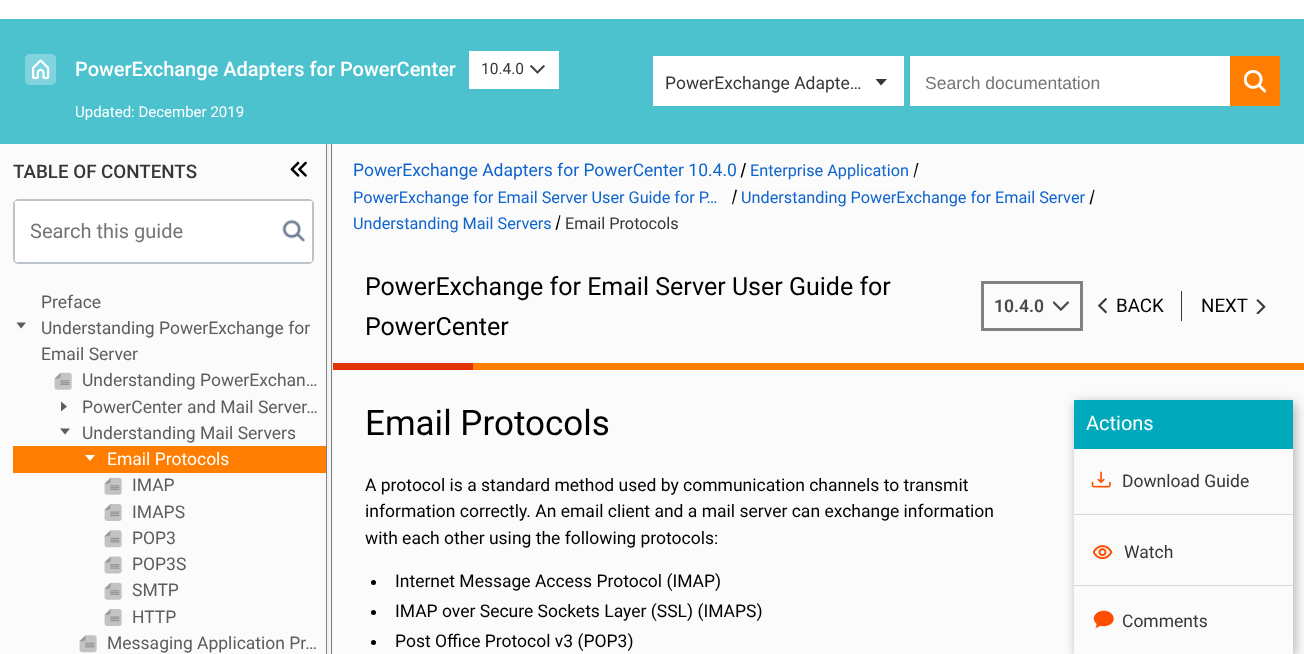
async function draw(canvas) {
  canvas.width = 1304
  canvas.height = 654
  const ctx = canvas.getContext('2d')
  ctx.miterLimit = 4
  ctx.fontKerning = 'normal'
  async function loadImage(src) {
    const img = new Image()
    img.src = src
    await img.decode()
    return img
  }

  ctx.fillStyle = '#fff'
  ctx.fillRect(0, 0, 1304, 654)
  ctx.fillStyle = '#4dc2cf'
  ctx.fillRect(0, 19, 1304, 125)
  ctx.drawImage(await loadImage('image0.png'), 25, 54, 31, 31)
  ctx.font = '500 20px Roboto'
  ctx.fillStyle = '#fff'
  ctx.fillText('PowerExchange Adapters for PowerCenter', 75, 76)
  ctx.fillRect(469, 51, 90, 38)
  ctx.font = '15.5px Roboto'
  ctx.fillStyle = '#373737'
  ctx.fillText('10.4.0', 481, 74)
  ctx.drawImage(await loadImage('image1.png'), 530, 65, 15, 9)
  ctx.font = '15px Roboto'
  ctx.fillStyle = '#fff'
  ctx.fillText('Updated: December 2019', 75, 117)
  ctx.fillRect(653, 56, 251, 50)
  ctx.font = '17.5px Roboto'
  ctx.fillStyle = '#373737'
  ctx.fillText('PowerExchange Adapte…', 665, 89)
  ctx.beginPath()
  ctx.moveTo(887, 79)
  ctx.lineTo(881, 85.5)
  ctx.lineTo(875.5, 79)
  ctx.closePath()
  ctx.fill()
  ctx.fillStyle = '#fff'
  ctx.fillRect(910, 56, 320, 50)
  ctx.font = '17.5px Liberation Sans'
  ctx.fillStyle = '#757575'
  ctx.fillText('Search documentation', 925, 89)
  ctx.fillStyle = '#ff7d00'
  ctx.fillRect(1230, 56, 50, 50)
  ctx.drawImage(await loadImage('image2.png'), 1244, 70, 22, 23)
  ctx.fillStyle = '#fbfbfb'
  ctx.fillRect(0, 144, 326, 510)
  ctx.font = '500 18.75px Roboto'
  ctx.fillStyle = '#373737'
  ctx.fillText('TABLE OF CONTENTS', 13, 178)
  ctx.fillStyle = '#fff'
  ctx.beginPath()
  ctx.roundRect(13.5, 199.5, 300, 64, 4.5)
  ctx.fill()
  ctx.strokeStyle = '#bcc3ca'
  ctx.stroke()
  ctx.beginPath()
  ctx.roundRect(14.5, 200.5, 298, 62, 2)
  ctx.stroke()
  ctx.fillRect(15, 201, 1, 1)
  ctx.font = '20px Roboto'
  ctx.fillStyle = '#757575'
  ctx.fillText('Search this guide', 30, 238)
  ctx.drawImage(await loadImage('image3.png'), 282, 219, 23, 24)
  ctx.drawImage(await loadImage('image4.png'), 290, 161, 17, 16)
  ctx.fillStyle = '#fbfbfb'
  ctx.fillRect(333, 144, 971, 510)
  ctx.fillStyle = '#e23400'
  ctx.fillRect(328, 363, 145, 7)
  ctx.fillStyle = '#f4f4f4'
  ctx.fillRect(327, 144, 6, 510)
  ctx.fillStyle = '#808080'
  ctx.fillRect(331, 144, 1, 510)
  ctx.fillRect(326, 144, 1, 510)
  ctx.font = '17.5px Roboto'
  ctx.fillStyle = '#5d5d5d'
  ctx.fillText('Preface', 41, 308)
  ctx.beginPath()
  ctx.moveTo(26, 322.5)
  ctx.lineTo(21, 328.5)
  ctx.lineTo(16.5, 322.5)
  ctx.closePath()
  ctx.fill()
  ctx.fillText('Understanding PowerExchange for', 41, 334)
  ctx.fillText('Email Server', 41, 360)
  ctx.drawImage(await loadImage('image5.png'), 54, 372, 18, 18)
  ctx.fillText('Understanding PowerExchan…', 82, 386)
  ctx.beginPath()
  ctx.moveTo(61, 401.5)
  ctx.lineTo(67, 406.5)
  ctx.lineTo(61, 411.5)
  ctx.closePath()
  ctx.moveTo(70, 428.5)
  ctx.lineTo(65, 434.5)
  ctx.lineTo(60, 428.5)
  ctx.closePath()
  ctx.fill()
  ctx.fillText('PowerCenter and Mail Server…', 82, 413)
  ctx.fillText('Understanding Mail Servers', 82, 439)
  ctx.fillStyle = '#ff7d00'
  ctx.fillRect(13, 446, 313, 27)
  ctx.fillStyle = '#fff'
  ctx.beginPath()
  ctx.moveTo(95, 455)
  ctx.lineTo(90, 461)
  ctx.lineTo(85, 455)
  ctx.closePath()
  ctx.fill()
  ctx.fillText('Email Protocols', 107, 465)
  ctx.drawImage(await loadImage('image5.png'), 104, 477, 18, 18)
  ctx.fillStyle = '#5d5d5d'
  ctx.fillText('IMAP', 132, 491)
  ctx.drawImage(await loadImage('image6.png'), 104, 504, 18, 17)
  ctx.fillText('IMAPS', 132, 518)
  ctx.drawImage(await loadImage('image7.png'), 104, 530, 18, 18)
  ctx.fillText('POP3', 132, 544)
  ctx.drawImage(await loadImage('image8.png'), 104, 556, 18, 18)
  ctx.fillText('POP3S', 132, 570)
  ctx.drawImage(await loadImage('image5.png'), 104, 582, 18, 18)
  ctx.fillText('SMTP', 132, 596)
  ctx.drawImage(await loadImage('image6.png'), 104, 609, 18, 17)
  ctx.fillText('HTTP', 132, 623)
  ctx.drawImage(await loadImage('image7.png'), 79, 635, 18, 18)
  ctx.fillText('Messaging Application Pr…', 107, 649)
  ctx.fillStyle = '#fff'
  ctx.fillRect(353, 185, 397, 1)
  ctx.fillStyle = '#0f64cd'
  ctx.fillText('PowerExchange Adapters for PowerCenter 10.4.0', 353, 176)
  ctx.fillStyle = '#000'
  ctx.beginPath()
  ctx.moveTo(744.5, 163)
  ctx.lineTo(746, 163)
  ctx.lineTo(742, 177.5)
  ctx.lineTo(740.5, 177.5)
  ctx.closePath()
  ctx.fill()
  ctx.fillStyle = '#fff'
  ctx.fillRect(750, 184, 173, 1)
  ctx.font = '16.25px Roboto'
  ctx.fillStyle = '#0f64cd'
  ctx.fillText('Enterprise Application', 750, 176)
  ctx.fillStyle = '#000'
  ctx.beginPath()
  ctx.moveTo(917, 163)
  ctx.lineTo(918.5, 163)
  ctx.lineTo(914.5, 177.5)
  ctx.lineTo(913.5, 177.5)
  ctx.closePath()
  ctx.fill()
  ctx.fillStyle = '#fff'
  ctx.fillRect(353, 210, 746, 1)
  ctx.fillStyle = '#0f64cd'
  ctx.fillText('PowerExchange for Email Server User Guide for P…', 353, 203)
  ctx.fillStyle = '#000'
  ctx.beginPath()
  ctx.moveTo(735.5, 189.5)
  ctx.lineTo(737, 190)
  ctx.lineTo(733, 204.5)
  ctx.lineTo(732, 204)
  ctx.closePath()
  ctx.fill()
  ctx.fillStyle = '#0f64cd'
  ctx.fillText('Understanding PowerExchange for Email Server', 741, 203)
  ctx.fillStyle = '#000'
  ctx.beginPath()
  ctx.moveTo(1093.5, 189.5)
  ctx.lineTo(1094.5, 190)
  ctx.lineTo(1091, 204.5)
  ctx.lineTo(1089.5, 204)
  ctx.closePath()
  ctx.fill()
  ctx.fillStyle = '#fff'
  ctx.fillRect(353, 236, 326, 1)
  ctx.fillStyle = '#0f64cd'
  ctx.fillText('Understanding Mail Servers', 353, 229)
  ctx.fillStyle = '#000'
  ctx.beginPath()
  ctx.moveTo(559.5, 215)
  ctx.lineTo(560.5, 215.5)
  ctx.lineTo(557, 230)
  ctx.lineTo(555.5, 229.5)
  ctx.closePath()
  ctx.fill()
  ctx.fillStyle = '#373737'
  ctx.fillText('Email Protocols', 565, 229)
  ctx.font = '25px Roboto'
  ctx.fillStyle = '#000'
  ctx.fillText('PowerExchange for Email Server User Guide for', 365, 295)
  ctx.fillText('PowerCenter', 365, 335)
  ctx.strokeStyle = '#828282'
  ctx.lineWidth = 3
  ctx.strokeRect(982.5, 282.5, 99, 47)
  ctx.font = '600 17.5px Roboto'
  ctx.fillStyle = '#484848'
  ctx.fillText('10.4.0', 994, 312)
  ctx.drawImage(await loadImage('image9.png'), 1053, 301, 17, 10)
  ctx.drawImage(await loadImage('image10.png'), 1098, 298, 9, 16)
  ctx.font = '18.75px Roboto'
  ctx.fillStyle = '#000'
  ctx.fillText('BACK', 1116, 312)
  ctx.fillStyle = '#373737'
  ctx.fillRect(1181, 291, 1, 30)
  ctx.fillStyle = '#000'
  ctx.fillText('NEXT', 1201, 312)
  ctx.drawImage(await loadImage('image11.png'), 1256, 299, 10, 15)
  ctx.fillStyle = '#ff7d00'
  ctx.fillRect(473, 363, 831, 7)
  ctx.font = '35px Roboto'
  ctx.fillStyle = '#000'
  ctx.fillText('Email Protocols', 365, 435)
  ctx.font = '17.5px Roboto'
  ctx.fillText('A protocol is a standard method used by communication channels to transmit', 365, 491)
  ctx.fillText('information correctly. An email client and a mail server can exchange information', 365, 517)
  ctx.fillText('with each other using the following protocols:', 365, 544)
  ctx.beginPath()
  ctx.arc(373.5, 582.5, 2.5, 0, 2 * Math.PI)
  ctx.fill()
  ctx.fillText('Internet Message Access Protocol (IMAP)', 395, 587)
  ctx.beginPath()
  ctx.arc(373.5, 612.5, 2.5, 0, 2 * Math.PI)
  ctx.fill()
  ctx.fillText('IMAP over Secure Sockets Layer (SSL) (IMAPS)', 395, 617)
  ctx.beginPath()
  ctx.arc(373.5, 642.5, 2.5, 0, 2 * Math.PI)
  ctx.fill()
  ctx.fillText('Post Office Protocol v3 (POP3)', 395, 647)
  ctx.save()
  ctx.beginPath()
  ctx.moveTo(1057, 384)
  ctx.lineTo(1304, 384)
  ctx.lineTo(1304, 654)
  ctx.lineTo(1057, 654)
  ctx.closePath()
  ctx.moveTo(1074, 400)
  ctx.lineTo(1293, 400)
  ctx.lineTo(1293, 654)
  ctx.lineTo(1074, 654)
  ctx.closePath()
  ctx.clip('evenodd')
  ctx.fillStyle = '#0000004d'
  ctx.filter = 'blur(6px)'
  ctx.beginPath()
  ctx.rect(1076, 403, 219, 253)
  ctx.fill()
  ctx.filter = 'none'
  ctx.restore()
  ctx.fillStyle = '#00a9bb'
  ctx.fillRect(1074, 400, 219, 49)
  ctx.font = '20px Roboto'
  ctx.fillStyle = '#fff'
  ctx.fillText('Actions', 1086, 430)
  ctx.fillStyle = '#d8d8d8'
  ctx.fillRect(1074, 514, 219, 1)
  ctx.drawImage(await loadImage('image12.png'), 1091, 471, 20, 17)
  ctx.font = '17.5px Roboto'
  ctx.fillStyle = '#373737'
  ctx.fillText('Download Guide', 1122, 487)
  ctx.fillStyle = '#d8d8d8'
  ctx.fillRect(1074, 585, 219, 1)
  ctx.drawImage(await loadImage('image13.png'), 1093, 545, 20, 14)
  ctx.fillStyle = '#373737'
  ctx.fillText('Watch', 1124, 558)
  ctx.drawImage(await loadImage('image14.png'), 1093, 610, 21, 18)
  ctx.fillText('Comments', 1122, 627)
}

draw(document.querySelector('canvas'))
